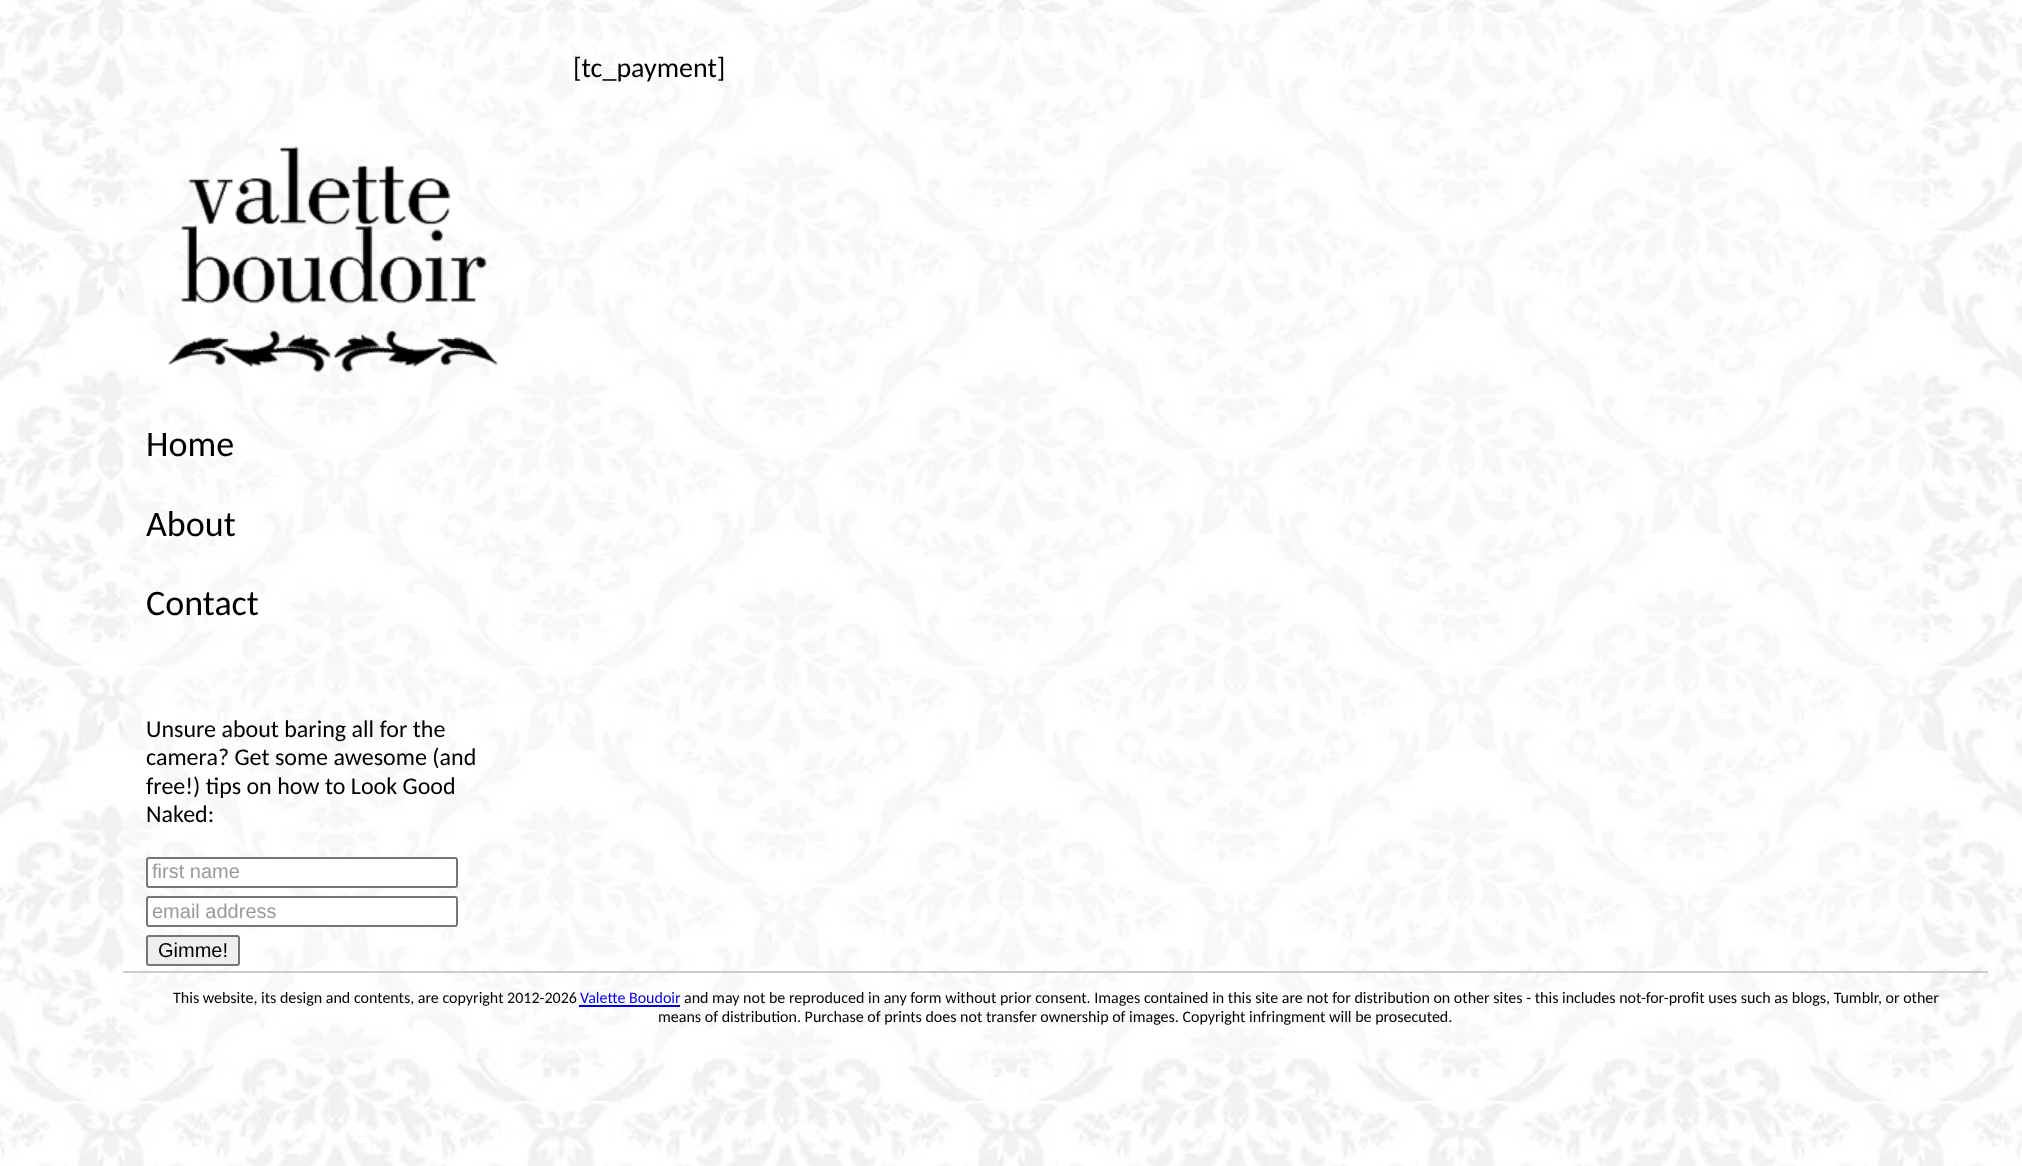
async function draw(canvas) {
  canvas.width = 2022
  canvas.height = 1166
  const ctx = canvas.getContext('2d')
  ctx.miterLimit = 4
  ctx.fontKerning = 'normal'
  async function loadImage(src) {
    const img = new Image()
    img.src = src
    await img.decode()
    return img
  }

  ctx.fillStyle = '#fff'
  ctx.fillRect(0, 0, 2022, 1166)
  ctx.drawImage(await loadImage('image0.png'), 0, 0, 2022, 1166)
  ctx.fillStyle = '#ffffff73'
  ctx.fillRect(123, 12, 1800, 1047)
  ctx.font = '28px Carlito'
  ctx.fillStyle = '#000'
  ctx.fillText('[tc_payment]', 573, 77)
  ctx.drawImage(await loadImage('image1.png'), 168, 146, 331, 227)
  ctx.font = '36px Carlito'
  ctx.fillText('Home', 146, 456)
  ctx.fillText('About', 146, 536)
  ctx.fillText('Contact', 146, 615)
  ctx.font = '24px Carlito'
  ctx.fillText('Unsure about baring all for the', 146, 737)
  ctx.fillText('camera? Get some awesome (and', 146, 765)
  ctx.fillText('free!) tips on how to Look Good', 146, 794)
  ctx.fillText('Naked:', 146, 822)
  ctx.fillStyle = '#fff'
  ctx.beginPath()
  ctx.roundRect(147, 858, 310, 29, 2)
  ctx.fill()
  ctx.strokeStyle = '#767676'
  ctx.lineWidth = 2
  ctx.stroke()
  ctx.font = '20px Liberation Sans'
  ctx.fillStyle = '#999'
  ctx.fillText('first name', 152, 878)
  ctx.fillStyle = '#fff'
  ctx.beginPath()
  ctx.roundRect(147, 897, 310, 29, 2)
  ctx.fill()
  ctx.stroke()
  ctx.fillStyle = '#999'
  ctx.fillText('email address', 152, 918)
  ctx.fillStyle = '#efefef'
  ctx.beginPath()
  ctx.roundRect(147, 936, 92, 29, 2)
  ctx.fill()
  ctx.stroke()
  ctx.fillStyle = '#000'
  ctx.fillText('Gimme!', 158, 957)
  ctx.fillStyle = '#ccc'
  ctx.fillRect(123, 971, 1865, 2)
  ctx.font = '16px Carlito'
  ctx.fillStyle = '#000'
  ctx.fillText('This website, its design and contents, are copyright 2012-2026', 173, 1003)
  ctx.fillStyle = '#00e'
  ctx.fillText('Valette Boudoir', 580, 1003)
  ctx.fillRect(579, 1005, 101, 2)
  ctx.fillStyle = '#000'
  ctx.fillText('and may not be reproduced in any form without prior consent. Images contained in this site are not for distribution on other sites - this includes not-for-profit uses such as blogs, Tumblr, or other', 684, 1003)
  ctx.fillText('means of distribution. Purchase of prints does not transfer ownership of images. Copyright infringment will be prosecuted.', 658, 1022)
}

draw(document.querySelector('canvas'))
